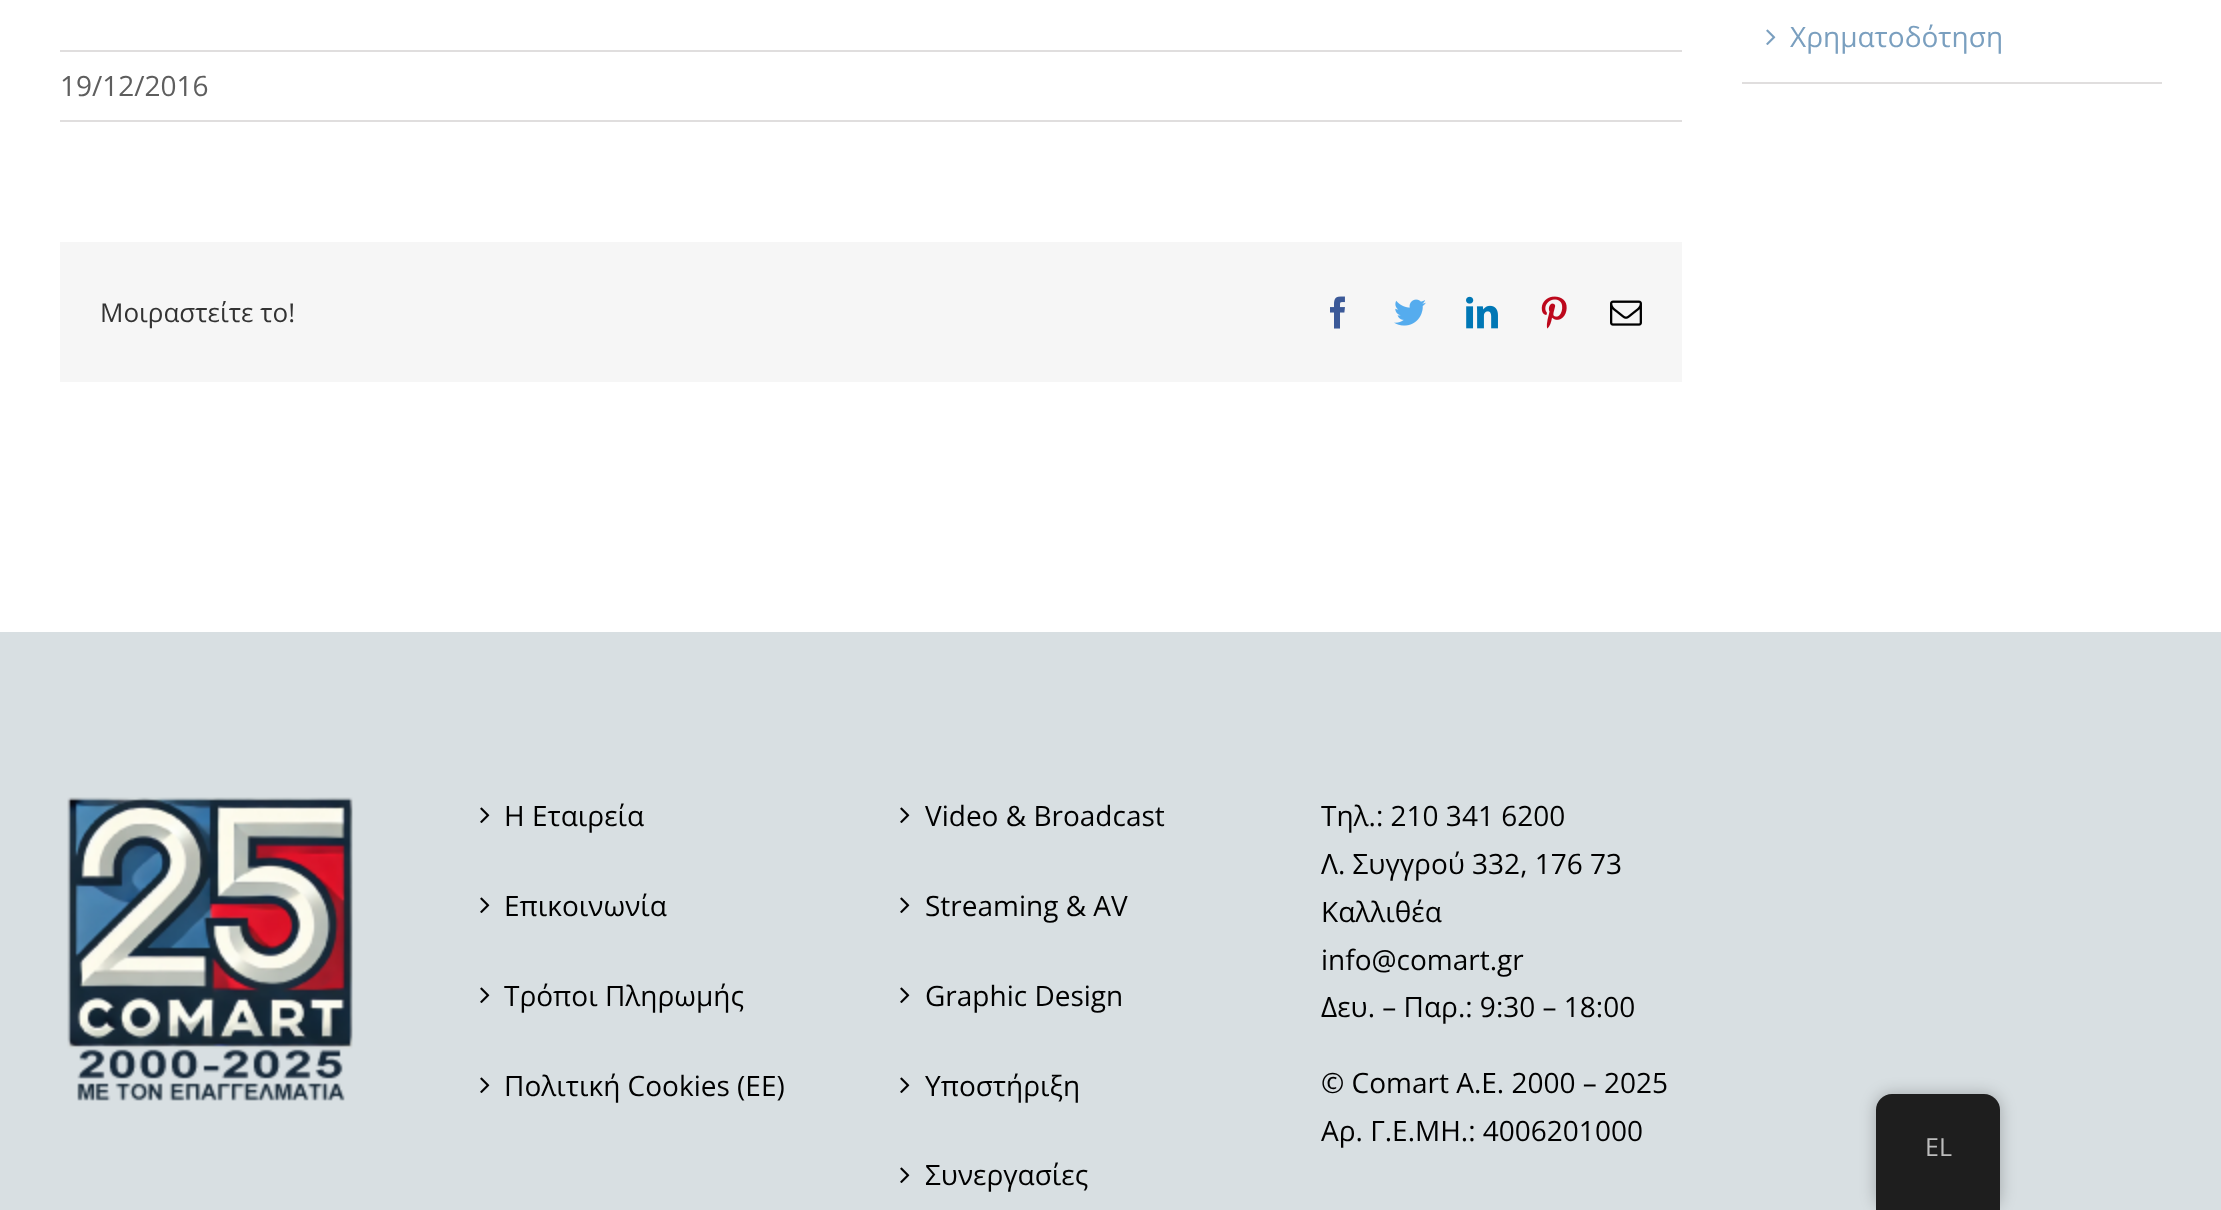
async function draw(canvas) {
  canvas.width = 2221
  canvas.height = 1210
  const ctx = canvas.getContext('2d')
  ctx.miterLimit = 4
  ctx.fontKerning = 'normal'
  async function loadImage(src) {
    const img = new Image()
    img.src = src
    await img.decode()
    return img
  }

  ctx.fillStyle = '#fff'
  ctx.fillRect(0, 0, 2221, 1210)
  ctx.fillStyle = '#e0dede'
  ctx.fillRect(1742, 82, 420, 2)
  ctx.drawImage(await loadImage('image0.png'), 1766, 29, 10, 16)
  ctx.font = '28px Open Sans'
  ctx.fillStyle = '#7a9fbf'
  ctx.fillText('Χρηματοδότηση', 1790, 47)
  ctx.fillStyle = '#e0dede'
  ctx.fillRect(60, 50, 1622, 2)
  ctx.fillRect(60, 120, 1622, 2)
  ctx.fillStyle = '#5e5e5e'
  ctx.fillText('19/12/2016', 60, 96)
  ctx.fillStyle = '#f6f6f6'
  ctx.fillRect(60, 242, 1622, 140)
  ctx.font = '26px Open Sans'
  ctx.fillStyle = '#333'
  ctx.fillText('Μοιραστείτε το!', 100, 322)
  ctx.drawImage(await loadImage('image1.png'), 1330, 296, 15, 33)
  ctx.drawImage(await loadImage('image2.png'), 1394, 299, 32, 27)
  ctx.drawImage(await loadImage('image3.png'), 1466, 296, 32, 33)
  ctx.drawImage(await loadImage('image4.png'), 1541, 296, 26, 33)
  ctx.drawImage(await loadImage('image5.png'), 1610, 300, 32, 26)
  ctx.fillStyle = '#d8dfe2'
  ctx.fillRect(0, 632, 2221, 578)
  ctx.drawImage(await loadImage('image6.png'), 67, 797, 286, 304)
  ctx.drawImage(await loadImage('image7.png'), 480, 807, 10, 16)
  ctx.font = '28px Open Sans'
  ctx.fillStyle = '#000'
  ctx.fillText('Η Εταιρεία', 504, 826)
  ctx.drawImage(await loadImage('image7.png'), 480, 897, 10, 16)
  ctx.fillText('Επικοινωνία', 504, 916)
  ctx.drawImage(await loadImage('image7.png'), 480, 987, 10, 16)
  ctx.fillText('Τρόποι Πληρωμής', 504, 1006)
  ctx.drawImage(await loadImage('image7.png'), 480, 1077, 10, 16)
  ctx.fillText('Πολιτική Cookies (ΕΕ)', 504, 1096)
  ctx.drawImage(await loadImage('image7.png'), 900, 807, 10, 16)
  ctx.fillText('Video & Broadcast', 925, 826)
  ctx.drawImage(await loadImage('image7.png'), 900, 897, 10, 16)
  ctx.fillText('Streaming & AV', 925, 916)
  ctx.drawImage(await loadImage('image7.png'), 900, 987, 10, 16)
  ctx.fillText('Graphic Design', 925, 1006)
  ctx.drawImage(await loadImage('image7.png'), 900, 1077, 10, 16)
  ctx.fillText('Υποστήριξη', 925, 1096)
  ctx.drawImage(await loadImage('image7.png'), 900, 1167, 10, 16)
  ctx.fillText('Συνεργασίες', 925, 1185)
  ctx.fillText('Τηλ.: 210 341 6200', 1321, 826)
  ctx.fillText('Λ. Συγγρού 332, 176 73', 1321, 874)
  ctx.fillText('Καλλιθέα', 1321, 922)
  ctx.fillText('info@comart.gr', 1321, 970)
  ctx.fillText('Δευ. – Παρ.: 9:30 – 18:00', 1321, 1017)
  ctx.fillText('© Comart A.E. 2000 – 2025', 1321, 1093)
  ctx.fillText('Αρ. Γ.Ε.ΜΗ.: 4006201000', 1321, 1141)
  ctx.fillStyle = '#00000040'
  ctx.filter = 'blur(8px)'
  ctx.beginPath()
  ctx.roundRect(1876, 1094, 124, 116, 16)
  ctx.fill()
  ctx.filter = 'none'
  ctx.fillStyle = '#1e1e1e'
  ctx.beginPath()
  ctx.roundRect(1876, 1094, 124, 116, [16, 16, 0, 0])
  ctx.fill()
  ctx.font = '25px Open Sans'
  ctx.fillStyle = '#bdbdbd'
  ctx.fillText('EL', 1925, 1156)
}

draw(document.querySelector('canvas'))
